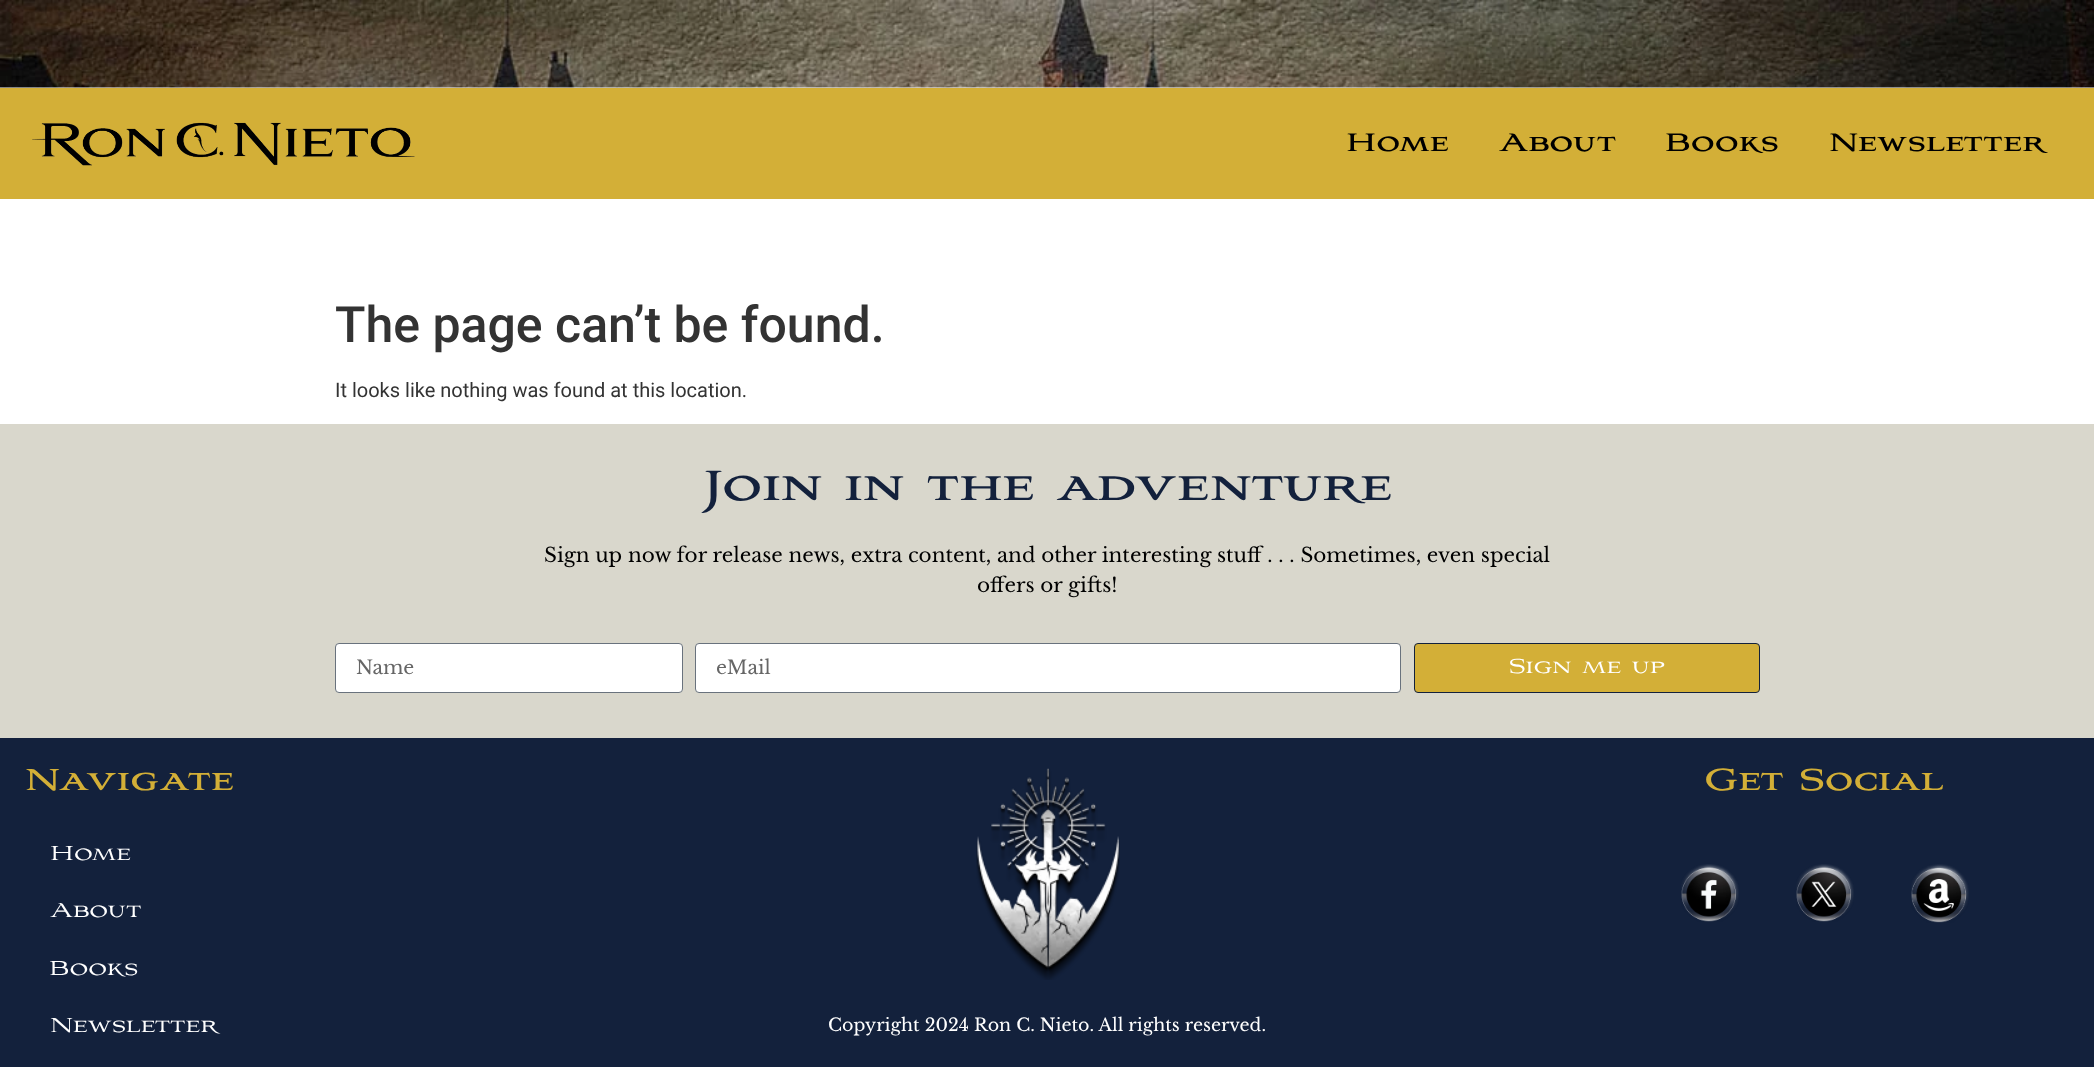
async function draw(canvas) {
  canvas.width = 2094
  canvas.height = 1067
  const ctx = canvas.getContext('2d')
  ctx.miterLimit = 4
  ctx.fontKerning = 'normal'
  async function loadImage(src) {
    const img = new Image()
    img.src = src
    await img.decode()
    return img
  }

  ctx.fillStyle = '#fff'
  ctx.fillRect(0, 0, 2094, 1067)
  ctx.drawImage(await loadImage('image0.png'), 0, 0, 2094, 88)
  ctx.fillStyle = '#d3af37'
  ctx.fillRect(0, 88, 2094, 111)
  ctx.drawImage(await loadImage('image1.png'), 32, 122, 383, 44)
  ctx.font = 'bold 31.25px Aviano'
  ctx.fillStyle = '#000'
  ctx.fillText('Home', 1346, 151)
  ctx.fillText('About', 1499, 151)
  ctx.fillText('Books', 1666, 151)
  ctx.fillText('Newsletter', 1829, 151)
  ctx.font = '500 50px Roboto'
  ctx.fillStyle = '#333'
  ctx.fillText('The page can’t be found.', 335, 342)
  ctx.font = '20px Roboto'
  ctx.fillText('It looks like nothing was found at this location.', 335, 397)
  ctx.fillStyle = '#d9d7cc'
  ctx.fillRect(0, 424, 2094, 314)
  ctx.font = 'bold 52.5px Aviano'
  ctx.fillStyle = '#13213c'
  ctx.fillText('Join in the adventure', 703, 500)
  ctx.font = '20px Libre Baskerville'
  ctx.fillStyle = '#000'
  ctx.fillText('Sign up now for release news, extra content, and other interesting stuff . . . Sometimes, even special', 544, 562)
  ctx.fillText('offers or gifts!', 977, 592)
  ctx.fillStyle = '#fff'
  ctx.beginPath()
  ctx.roundRect(335.5, 643.5, 347, 49, 3.5)
  ctx.fill()
  ctx.strokeStyle = '#69727d'
  ctx.stroke()
  ctx.font = '19px Libre Baskerville'
  ctx.fillStyle = '#666'
  ctx.fillText('Name', 356, 674)
  ctx.fillStyle = '#fff'
  ctx.beginPath()
  ctx.roundRect(695.5, 643.5, 705, 49, 3.5)
  ctx.fill()
  ctx.stroke()
  ctx.fillStyle = '#666'
  ctx.fillText('eMail', 716, 674)
  ctx.fillStyle = '#d3af37'
  ctx.beginPath()
  ctx.roundRect(1414.5, 643.5, 345, 49, 3.5)
  ctx.fill()
  ctx.strokeStyle = '#13213c'
  ctx.stroke()
  ctx.font = '25px Aviano'
  ctx.fillStyle = '#fff'
  ctx.fillText('Sign me up', 1509, 673)
  ctx.fillStyle = '#13213c'
  ctx.fillRect(0, 738, 2094, 329)
  ctx.font = 'bold 37.5px Aviano'
  ctx.fillStyle = '#d3af37'
  ctx.fillText('Navigate', 25, 790)
  ctx.font = '25px Aviano'
  ctx.fillStyle = '#fff'
  ctx.fillText('Home', 50, 860)
  ctx.fillText('About', 50, 917)
  ctx.fillText('Books', 50, 975)
  ctx.fillText('Newsletter', 50, 1032)
  ctx.drawImage(await loadImage('image2.png'), 976, 768, 144, 212)
  ctx.font = '17.5px Libre Baskerville'
  ctx.fillText('Copyright 2024 Ron C. Nieto. All rights reserved.', 828, 1031)
  ctx.font = 'bold 37.5px Aviano'
  ctx.fillStyle = '#d3af37'
  ctx.fillText('Get Social', 1704, 790)
  ctx.drawImage(await loadImage('image3.png'), 1681, 864, 58, 58)
  ctx.drawImage(await loadImage('image4.png'), 1796, 864, 58, 58)
  ctx.drawImage(await loadImage('image5.png'), 1911, 864, 58, 59)
}

draw(document.querySelector('canvas'))
